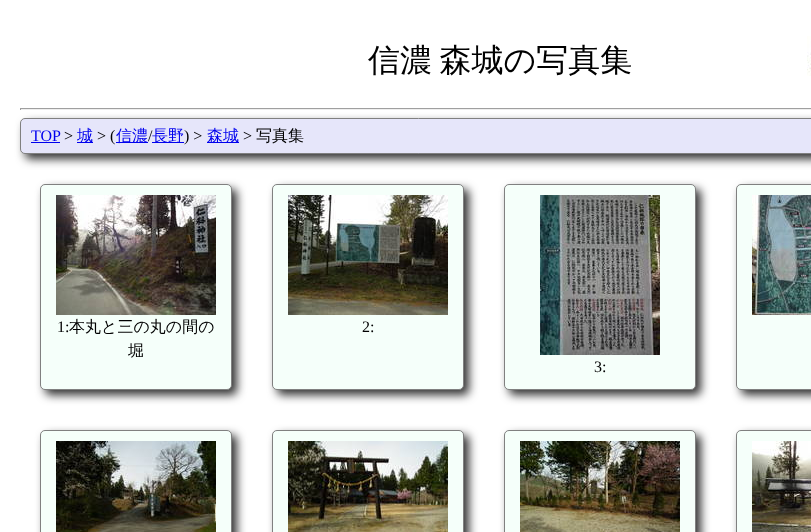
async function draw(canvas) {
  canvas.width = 811
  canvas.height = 532
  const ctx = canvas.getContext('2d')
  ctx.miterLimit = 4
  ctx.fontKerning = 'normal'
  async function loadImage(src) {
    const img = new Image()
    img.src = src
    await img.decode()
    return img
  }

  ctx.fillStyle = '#fff'
  ctx.fillRect(0, 0, 811, 532)
  ctx.wordSpacing = '-2px'
  ctx.font = '500 32px WenQuanYi Zen Hei'
  ctx.fillStyle = '#000'
  ctx.fillText('信濃 森城の写真集', 368, 71)
  ctx.drawImage(await loadImage('image0.png'), 807, 36, 4, 40)
  ctx.fillStyle = '#333'
  ctx.filter = 'blur(5px)'
  ctx.beginPath()
  ctx.roundRect(25, 123, 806, 36, 5)
  ctx.fill()
  ctx.filter = 'none'
  ctx.fillStyle = '#9f9f9f'
  ctx.fillRect(20, 108, 791, 1)
  ctx.fillStyle = '#eee'
  ctx.fillRect(20, 109, 791, 1)
  ctx.fillStyle = '#9f9f9f'
  ctx.fillRect(20, 108, 1, 2)
  ctx.fillStyle = '#e6e6fa'
  ctx.beginPath()
  ctx.roundRect(20.5, 118.5, 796, 35, 4.5)
  ctx.fill()
  ctx.strokeStyle = '#808080'
  ctx.stroke()
  ctx.wordSpacing = '0px'
  ctx.font = '16px Liberation Serif'
  ctx.fillStyle = '#00e'
  ctx.fillText('TOP', 31, 141)
  ctx.fillRect(31, 142, 29, 1)
  ctx.fillStyle = '#000'
  ctx.fillText('>', 64, 141)
  ctx.fillStyle = '#00e'
  ctx.fillRect(77, 142, 16, 1)
  ctx.font = '500 16px WenQuanYi Zen Hei'
  ctx.fillText('城', 77, 141)
  ctx.font = '16px Liberation Serif'
  ctx.fillStyle = '#000'
  ctx.fillText('> (', 97, 141)
  ctx.fillStyle = '#00e'
  ctx.fillRect(116, 142, 32, 1)
  ctx.font = '500 16px WenQuanYi Zen Hei'
  ctx.fillText('信濃', 116, 141)
  ctx.font = '16px Liberation Serif'
  ctx.fillStyle = '#000'
  ctx.fillText('/', 148, 141)
  ctx.fillStyle = '#00e'
  ctx.fillRect(152, 142, 32, 1)
  ctx.font = '500 16px WenQuanYi Zen Hei'
  ctx.fillText('長野', 152, 141)
  ctx.font = '16px Liberation Serif'
  ctx.fillStyle = '#000'
  ctx.fillText(') >', 184, 141)
  ctx.fillStyle = '#00e'
  ctx.fillRect(207, 142, 32, 1)
  ctx.font = '500 16px WenQuanYi Zen Hei'
  ctx.fillText('森城', 207, 141)
  ctx.font = '16px Liberation Serif'
  ctx.fillStyle = '#000'
  ctx.fillText('>', 243, 141)
  ctx.font = '500 16px WenQuanYi Zen Hei'
  ctx.fillText('写真集', 256, 141)
  ctx.fillStyle = '#333'
  ctx.filter = 'blur(5px)'
  ctx.beginPath()
  ctx.roundRect(45, 189, 192, 206, 5)
  ctx.fill()
  ctx.filter = 'none'
  ctx.fillStyle = '#f5fffa'
  ctx.beginPath()
  ctx.roundRect(40.5, 184.5, 191, 205, 4.5)
  ctx.fill()
  ctx.stroke()
  ctx.drawImage(await loadImage('image1.png'), 56, 195, 160, 120)
  ctx.font = '16px Liberation Serif'
  ctx.fillStyle = '#000'
  ctx.fillText('1:', 57, 332)
  ctx.font = '500 16px WenQuanYi Zen Hei'
  ctx.fillText('本丸と三の丸の間の', 69, 332)
  ctx.fillText('堀', 128, 356)
  ctx.fillStyle = '#333'
  ctx.filter = 'blur(5px)'
  ctx.beginPath()
  ctx.roundRect(277, 189, 192, 206, 5)
  ctx.fill()
  ctx.filter = 'none'
  ctx.fillStyle = '#f5fffa'
  ctx.beginPath()
  ctx.roundRect(272.5, 184.5, 191, 205, 4.5)
  ctx.fill()
  ctx.stroke()
  ctx.drawImage(await loadImage('image2.png'), 288, 195, 160, 120)
  ctx.font = '16px Liberation Serif'
  ctx.fillStyle = '#000'
  ctx.fillText('2:', 362, 332)
  ctx.fillStyle = '#333'
  ctx.filter = 'blur(5px)'
  ctx.beginPath()
  ctx.roundRect(741, 189, 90, 206, 5)
  ctx.fill()
  ctx.filter = 'none'
  ctx.fillStyle = '#f5fffa'
  ctx.beginPath()
  ctx.roundRect(736.5, 184.5, 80, 205, 4.5)
  ctx.fill()
  ctx.stroke()
  ctx.drawImage(await loadImage('image3.png'), 752, 195, 59, 120)
  ctx.fillStyle = '#333'
  ctx.filter = 'blur(5px)'
  ctx.beginPath()
  ctx.roundRect(509, 189, 192, 206, 5)
  ctx.fill()
  ctx.filter = 'none'
  ctx.fillStyle = '#f5fffa'
  ctx.beginPath()
  ctx.roundRect(504.5, 184.5, 191, 205, 4.5)
  ctx.fill()
  ctx.stroke()
  ctx.drawImage(await loadImage('image4.png'), 540, 195, 120, 160)
  ctx.fillStyle = '#000'
  ctx.fillText('3:', 594, 372)
  ctx.fillStyle = '#333'
  ctx.filter = 'blur(5px)'
  ctx.beginPath()
  ctx.roundRect(45, 435, 192, 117, 5)
  ctx.fill()
  ctx.filter = 'none'
  ctx.fillStyle = '#f5fffa'
  ctx.beginPath()
  ctx.roundRect(40.5, 430.5, 191, 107, 4.5)
  ctx.fill()
  ctx.stroke()
  ctx.drawImage(await loadImage('image5.png'), 56, 441, 160, 91)
  ctx.fillStyle = '#333'
  ctx.filter = 'blur(5px)'
  ctx.beginPath()
  ctx.roundRect(277, 435, 192, 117, 5)
  ctx.fill()
  ctx.filter = 'none'
  ctx.fillStyle = '#f5fffa'
  ctx.beginPath()
  ctx.roundRect(272.5, 430.5, 191, 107, 4.5)
  ctx.fill()
  ctx.stroke()
  ctx.drawImage(await loadImage('image6.png'), 288, 441, 160, 91)
  ctx.fillStyle = '#333'
  ctx.filter = 'blur(5px)'
  ctx.beginPath()
  ctx.roundRect(509, 435, 192, 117, 5)
  ctx.fill()
  ctx.filter = 'none'
  ctx.fillStyle = '#f5fffa'
  ctx.beginPath()
  ctx.roundRect(504.5, 430.5, 191, 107, 4.5)
  ctx.fill()
  ctx.stroke()
  ctx.drawImage(await loadImage('image7.png'), 520, 441, 160, 91)
  ctx.fillStyle = '#333'
  ctx.filter = 'blur(5px)'
  ctx.beginPath()
  ctx.roundRect(741, 435, 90, 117, 5)
  ctx.fill()
  ctx.filter = 'none'
  ctx.fillStyle = '#f5fffa'
  ctx.beginPath()
  ctx.roundRect(736.5, 430.5, 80, 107, 4.5)
  ctx.fill()
  ctx.stroke()
  ctx.drawImage(await loadImage('image8.png'), 752, 441, 59, 91)
}

draw(document.querySelector('canvas'))
